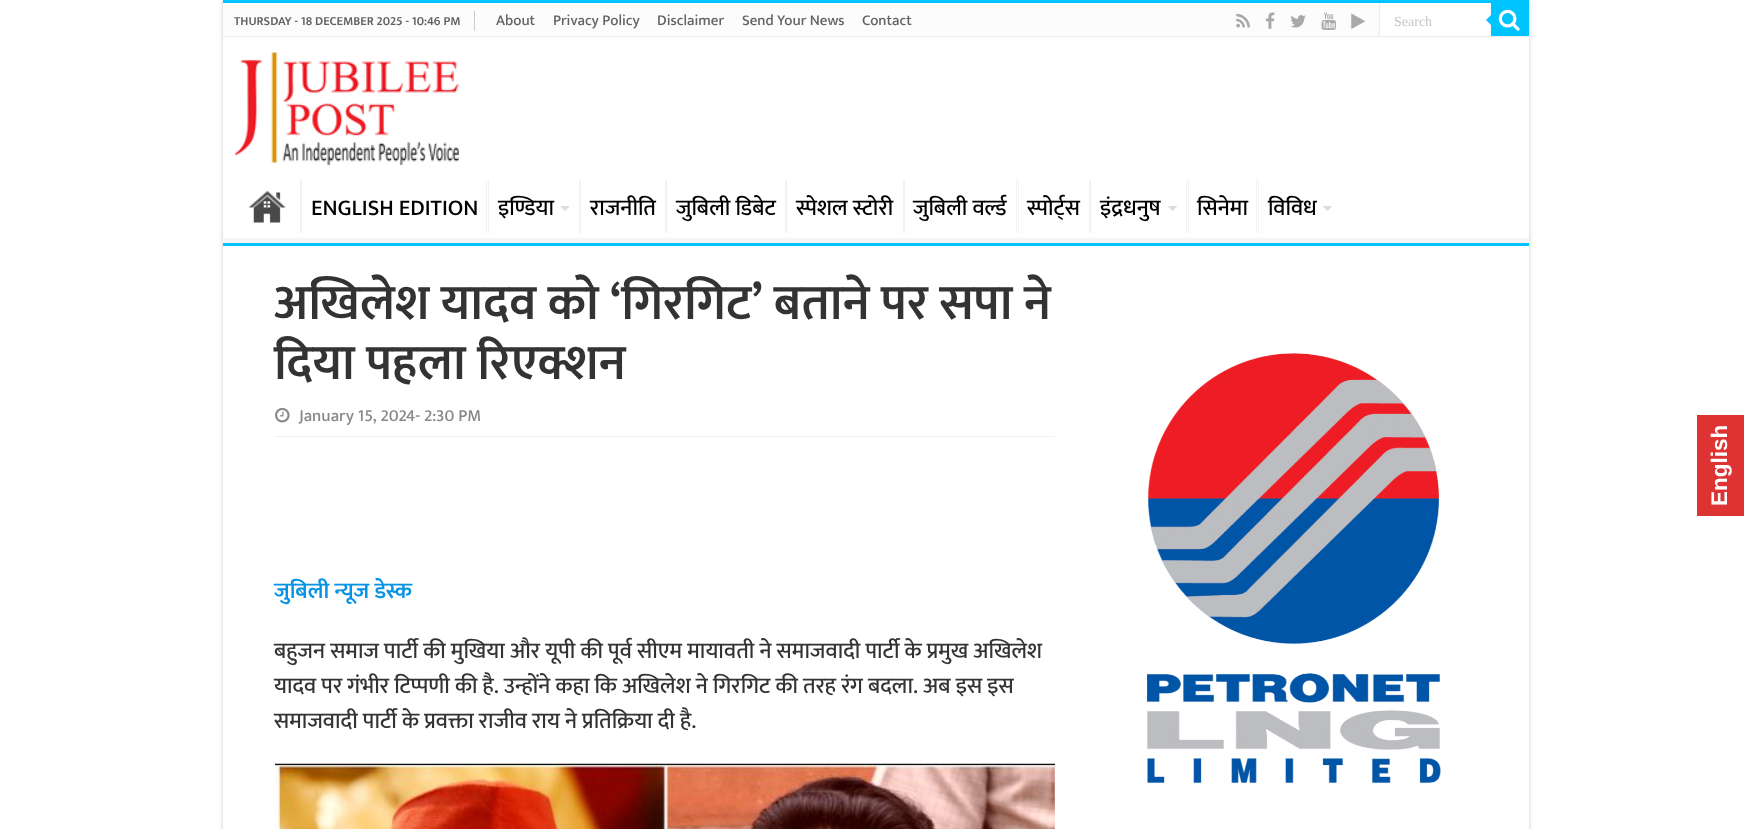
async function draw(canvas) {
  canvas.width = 1749
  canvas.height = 829
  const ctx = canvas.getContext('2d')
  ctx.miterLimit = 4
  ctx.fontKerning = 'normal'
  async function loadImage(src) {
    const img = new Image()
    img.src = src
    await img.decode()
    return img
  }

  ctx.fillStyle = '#fff'
  ctx.fillRect(0, 0, 1749, 829)
  ctx.fillStyle = '#cacaca'
  ctx.filter = 'blur(2px)'
  ctx.beginPath()
  ctx.rect(223, 0, 1306, 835)
  ctx.fill()
  ctx.filter = 'none'
  ctx.fillStyle = '#fff'
  ctx.fillRect(223, 38, 1306, 791)
  ctx.fillStyle = '#00c4ff'
  ctx.fillRect(223, 0, 1306, 3)
  ctx.fillStyle = '#fcfcfc'
  ctx.fillRect(223, 3, 1306, 35)
  ctx.fillStyle = '#ececec'
  ctx.fillRect(223, 36, 1306, 1)
  ctx.fillStyle = '#ccc'
  ctx.fillRect(474, 11, 1, 20)
  ctx.font = '600 12.5px Mukta'
  ctx.fillStyle = '#636363'
  ctx.fillText('THURSDAY - 18 DECEMBER 2025 - 10:46 PM', 234, 25)
  ctx.font = '500 15px Mukta'
  ctx.fillText('About', 496, 25)
  ctx.fillText('Privacy Policy', 553, 25)
  ctx.fillText('Disclaimer', 657, 25)
  ctx.fillText('Send Your News', 742, 25)
  ctx.fillText('Contact', 862, 25)
  ctx.drawImage(await loadImage('image0.png'), 1236, 13, 14, 15)
  ctx.drawImage(await loadImage('image1.png'), 1265, 12, 10, 17)
  ctx.drawImage(await loadImage('image2.png'), 1290, 15, 16, 13)
  ctx.drawImage(await loadImage('image3.png'), 1321, 12, 15, 18)
  ctx.drawImage(await loadImage('image4.png'), 1351, 13, 14, 16)
  ctx.fillStyle = '#fff'
  ctx.fillRect(1380, 3, 111, 33)
  ctx.fillStyle = '#ececec'
  ctx.fillRect(1379, 3, 1, 33)
  ctx.font = '14px Liberation Serif'
  ctx.fillStyle = '#c5c5c5'
  ctx.fillText('Search', 1394, 26)
  ctx.fillStyle = '#00c4ff'
  ctx.fillRect(1491, 3, 38, 33)
  ctx.drawImage(await loadImage('image5.png'), 1498, 9, 22, 22)
  ctx.beginPath()
  ctx.moveTo(1491, 15)
  ctx.lineTo(1491, 25)
  ctx.lineTo(1486, 20)
  ctx.closePath()
  ctx.fill()
  ctx.drawImage(await loadImage('image6.png'), 235, 52, 224, 113)
  ctx.save()
  ctx.beginPath()
  ctx.rect(223, 180, 1306, 63)
  ctx.clip()
  ctx.fillStyle = '#f5f5f5'
  ctx.beginPath()
  ctx.moveTo(99, 56)
  ctx.lineTo(1652, 56)
  ctx.lineTo(1652, 366)
  ctx.lineTo(99, 366)
  ctx.closePath()
  ctx.moveTo(221, 172)
  ctx.lineTo(1528, 172)
  ctx.bezierCurveTo(1528, 172, 1529, 173, 1529, 174)
  ctx.lineTo(1529, 236)
  ctx.bezierCurveTo(1529, 237, 1528, 238, 1528, 238)
  ctx.lineTo(221, 238)
  ctx.bezierCurveTo(221, 238, 220, 237, 220, 236)
  ctx.lineTo(220, 174)
  ctx.bezierCurveTo(220, 173, 221, 172, 221, 172)
  ctx.closePath()
  ctx.fill('evenodd')
  ctx.restore()
  ctx.fillRect(223, 243, 1306, 3)
  ctx.drawImage(await loadImage('image7.png'), 248, 191, 38, 32)
  ctx.fillStyle = '#f2f2f2'
  ctx.fillRect(300, 180, 2, 53)
  ctx.font = '500 22.5px Mukta'
  ctx.fillStyle = '#000'
  ctx.fillText('ENGLISH EDITION', 311, 215)
  ctx.fillStyle = '#f2f2f2'
  ctx.fillRect(486, 180, 1, 53)
  ctx.fillRect(488, 180, 1, 53)
  ctx.fillStyle = '#000'
  ctx.fillText('इण्डिया', 498, 215)
  ctx.fillStyle = '#ddd'
  ctx.beginPath()
  ctx.moveTo(560, 206)
  ctx.lineTo(570, 206)
  ctx.lineTo(565, 211)
  ctx.closePath()
  ctx.fill()
  ctx.fillStyle = '#f2f2f2'
  ctx.fillRect(579, 180, 2, 53)
  ctx.fillStyle = '#000'
  ctx.fillText('राजनीति', 590, 215)
  ctx.fillStyle = '#f2f2f2'
  ctx.fillRect(665, 180, 2, 53)
  ctx.fillStyle = '#000'
  ctx.fillText('जुबिली डिबेट', 676, 215)
  ctx.fillStyle = '#f2f2f2'
  ctx.fillRect(785, 180, 2, 53)
  ctx.fillStyle = '#000'
  ctx.fillText('स्पेशल स्टोरी', 796, 215)
  ctx.fillStyle = '#f2f2f2'
  ctx.fillRect(903, 180, 2, 53)
  ctx.fillStyle = '#000'
  ctx.fillText('जुबिली वर्ल्ड', 913, 215)
  ctx.fillStyle = '#f2f2f2'
  ctx.fillRect(1016, 180, 1, 53)
  ctx.fillRect(1018, 180, 1, 53)
  ctx.fillStyle = '#000'
  ctx.fillText('स्पोर्ट्स', 1027, 215)
  ctx.fillStyle = '#f2f2f2'
  ctx.fillRect(1089, 180, 2, 53)
  ctx.fillStyle = '#000'
  ctx.fillText('इंद्रधनुष', 1100, 215)
  ctx.fillStyle = '#ddd'
  ctx.beginPath()
  ctx.moveTo(1167.5, 206)
  ctx.lineTo(1177.5, 206)
  ctx.lineTo(1172.5, 211)
  ctx.closePath()
  ctx.fill()
  ctx.fillStyle = '#f2f2f2'
  ctx.fillRect(1186, 180, 1, 53)
  ctx.fillRect(1188, 180, 1, 53)
  ctx.fillStyle = '#000'
  ctx.fillText('सिनेमा', 1197, 215)
  ctx.fillStyle = '#f2f2f2'
  ctx.fillRect(1256, 180, 1, 53)
  ctx.fillRect(1258, 180, 1, 53)
  ctx.fillStyle = '#000'
  ctx.fillText('विविध', 1268, 215)
  ctx.fillStyle = '#ddd'
  ctx.beginPath()
  ctx.moveTo(1322.5, 206)
  ctx.lineTo(1332.5, 206)
  ctx.lineTo(1327.5, 211)
  ctx.closePath()
  ctx.fill()
  ctx.font = '600 50px Mukta'
  ctx.fillStyle = '#333'
  ctx.fillText('अखिलेश यादव को ‘गिरगिट’ बताने पर सपा ने', 274, 319)
  ctx.fillText('दिया पहला रिएक्शन', 274, 379)
  ctx.fillStyle = '#f2f2f2'
  ctx.fillRect(275, 436, 780, 1)
  ctx.drawImage(await loadImage('image8.png'), 275, 407, 15, 16)
  ctx.font = '500 17px Mukta'
  ctx.fillStyle = '#888'
  ctx.fillText('January 15, 2024- 2:30 PM', 299, 421)
  ctx.font = '600 22.5px Mukta'
  ctx.fillStyle = '#0693e3'
  ctx.fillText('जुबिली न्यूज डेस्क', 274, 598)
  ctx.font = '500 22.5px Mukta'
  ctx.fillStyle = '#333'
  ctx.fillText('बहुजन समाज पार्टी की मुखिया और यूपी की पूर्व सीएम मायावती ने समाजवादी पार्टी के प्रमुख अखिलेश', 274, 658)
  ctx.fillText('यादव पर गंभीर टिप्पणी की है. उन्होंने कहा कि अखिलेश ने गिरगिट की तरह रंग बदला. अब इस इस', 274, 693)
  ctx.fillText('समाजवादी पार्टी के प्रवक्ता राजीव राय ने प्रतिक्रिया दी है.', 274, 728)
  ctx.drawImage(await loadImage('image9.png'), 275, 763, 780, 66)
  ctx.drawImage(await loadImage('image10.png'), 1147, 353, 294, 431)
  ctx.fillStyle = '#d33'
  ctx.fillRect(1697, 415, 47, 101)
  ctx.font = 'bold 22.5px Liberation Sans'
  ctx.fillStyle = '#fff'
  ctx.save()
  ctx.translate(1727, 506)
  ctx.rotate(-90 * Math.PI / 180)
  ctx.fillText('English', 0, 0)
  ctx.restore()
}

draw(document.querySelector('canvas'))
